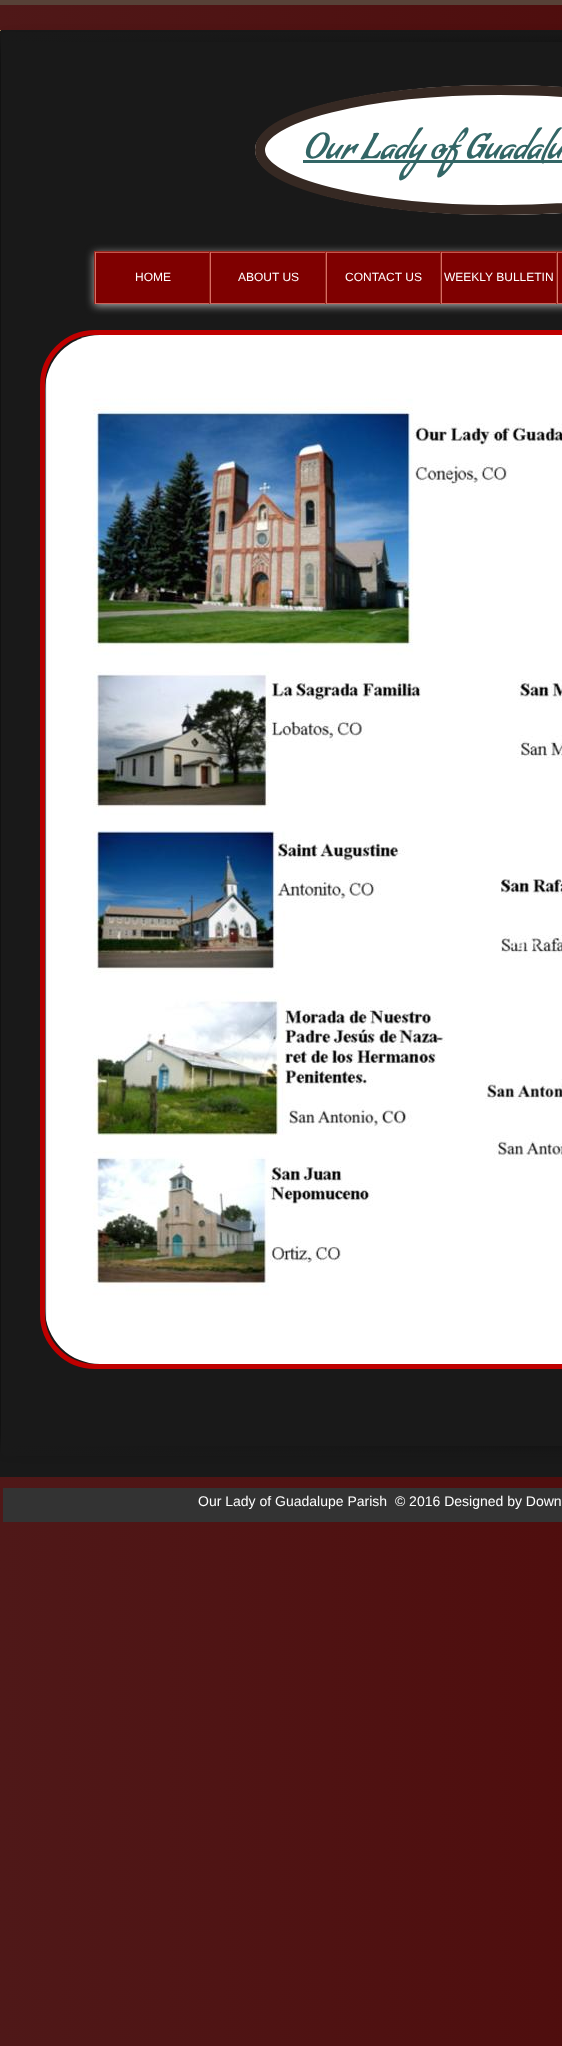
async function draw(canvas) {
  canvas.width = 562
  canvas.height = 2046
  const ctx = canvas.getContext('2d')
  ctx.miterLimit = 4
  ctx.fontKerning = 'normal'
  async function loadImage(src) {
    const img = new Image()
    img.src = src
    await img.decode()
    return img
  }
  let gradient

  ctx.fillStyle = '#574137'
  ctx.fillRect(0, 0, 562, 2046)
  gradient = ctx.createLinearGradient(0, 1041, 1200, 1041)
  gradient.addColorStop(0, '#4f1818')
  gradient.addColorStop(1, '#4f0202')
  ctx.fillStyle = gradient
  ctx.fillRect(0, 5, 562, 2041)
  ctx.fillStyle = '#191919'
  ctx.fillRect(0, 30, 562, 1447)
  ctx.save()
  ctx.beginPath()
  ctx.moveTo(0, 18)
  ctx.lineTo(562, 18)
  ctx.lineTo(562, 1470)
  ctx.lineTo(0, 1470)
  ctx.closePath()
  ctx.moveTo(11, 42)
  ctx.lineTo(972, 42)
  ctx.bezierCurveTo(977.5, 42, 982, 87, 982, 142)
  ctx.lineTo(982, 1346)
  ctx.bezierCurveTo(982, 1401, 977.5, 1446, 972, 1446)
  ctx.lineTo(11, 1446)
  ctx.bezierCurveTo(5.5, 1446, 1, 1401, 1, 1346)
  ctx.lineTo(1, 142)
  ctx.bezierCurveTo(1, 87, 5.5, 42, 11, 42)
  ctx.closePath()
  ctx.clip('evenodd')
  ctx.fillStyle = '#00000099'
  ctx.filter = 'blur(7.5px)'
  ctx.beginPath()
  ctx.roundRect(1, 42, 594, 1404, 10)
  ctx.fill()
  ctx.filter = 'none'
  ctx.restore()
  gradient = ctx.createLinearGradient(1, 744, 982, 744)
  gradient.addColorStop(0, '#191919')
  gradient.addColorStop(1, '#19191900')
  ctx.fillStyle = gradient
  ctx.beginPath()
  ctx.roundRect(1, 32, 561, 1424, [5, 0, 0, 5])
  ctx.fill()
  ctx.fillStyle = '#a38154'
  ctx.fillRect(0, 30, 1, 1)
  ctx.fillStyle = '#fff'
  ctx.beginPath()
  ctx.ellipse(500, 150, 245, 65, 0, 0, 2 * Math.PI)
  ctx.fill()
  ctx.beginPath()
  ctx.moveTo(500, 90)
  ctx.bezierCurveTo(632.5, 90, 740, 117, 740, 150)
  ctx.bezierCurveTo(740, 183, 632.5, 210, 500, 210)
  ctx.bezierCurveTo(367.5, 210, 260, 183, 260, 150)
  ctx.bezierCurveTo(260, 117, 367.5, 90, 500, 90)
  ctx.closePath()
  ctx.strokeStyle = '#362923'
  ctx.lineWidth = 10
  ctx.stroke()
  ctx.fillStyle = '#366'
  ctx.fillRect(303, 160, 259, 3)
  ctx.font = '36px Condiment'
  ctx.fillText('Our Lady of Guadalu', 303, 158)
  ctx.fillStyle = '#aaa'
  ctx.filter = 'blur(4px)'
  ctx.beginPath()
  ctx.rect(94, 253, 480, 53)
  ctx.fill()
  ctx.filter = 'none'
  ctx.strokeStyle = '#96271d'
  ctx.lineWidth = 1
  ctx.strokeRect(94.5, 251.5, 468, 52)
  ctx.fillStyle = '#7f0000'
  ctx.fillRect(96, 253, 113, 50)
  ctx.fillStyle = '#96271d'
  ctx.fillRect(209, 252, 1, 52)
  ctx.fillStyle = '#c4564d'
  ctx.fillRect(95, 252, 114, 1)
  ctx.fillStyle = '#ce6158'
  ctx.fillRect(95, 303, 114, 1)
  ctx.fillStyle = '#d86d64'
  ctx.fillRect(95, 252, 1, 52)
  ctx.font = '12px Liberation Sans'
  ctx.fillStyle = '#fff'
  ctx.fillText('HOME', 135, 281)
  ctx.fillStyle = '#7f0000'
  ctx.fillRect(211, 253, 114, 50)
  ctx.fillStyle = '#96271d'
  ctx.fillRect(325, 252, 1, 52)
  ctx.fillStyle = '#c4564d'
  ctx.fillRect(210, 252, 115, 1)
  ctx.fillStyle = '#ce6158'
  ctx.fillRect(210, 303, 115, 1)
  ctx.fillStyle = '#d86d64'
  ctx.fillRect(210, 252, 1, 52)
  ctx.fillStyle = '#fff'
  ctx.fillText('ABOUT US', 238, 281)
  ctx.fillStyle = '#7f0000'
  ctx.fillRect(327, 253, 113, 50)
  ctx.fillStyle = '#96271d'
  ctx.fillRect(440, 252, 1, 52)
  ctx.fillStyle = '#c4564d'
  ctx.fillRect(326, 252, 114, 1)
  ctx.fillStyle = '#ce6158'
  ctx.fillRect(326, 303, 114, 1)
  ctx.fillStyle = '#d86d64'
  ctx.fillRect(326, 252, 1, 52)
  ctx.fillStyle = '#fff'
  ctx.fillText('CONTACT US', 345, 281)
  ctx.fillStyle = '#7f0000'
  ctx.fillRect(442, 253, 114, 50)
  ctx.fillStyle = '#96271d'
  ctx.fillRect(556, 252, 1, 52)
  ctx.fillStyle = '#c4564d'
  ctx.fillRect(441, 252, 115, 1)
  ctx.fillStyle = '#ce6158'
  ctx.fillRect(441, 303, 115, 1)
  ctx.fillStyle = '#d86d64'
  ctx.fillRect(441, 252, 1, 52)
  ctx.fillStyle = '#fff'
  ctx.fillText('WEEKLY BULLETIN', 444, 281)
  ctx.fillStyle = '#7f0000'
  ctx.fillRect(558, 252, 4, 52)
  ctx.fillStyle = '#c4564d'
  ctx.fillRect(557, 252, 5, 1)
  ctx.fillStyle = '#ce6158'
  ctx.fillRect(557, 303, 5, 1)
  ctx.fillStyle = '#d86d64'
  ctx.fillRect(557, 252, 1, 52)
  ctx.beginPath()
  ctx.roundRect(42.5, 332.5, 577, 1034, 52.5)
  ctx.strokeStyle = '#bf0000'
  ctx.lineWidth = 5
  ctx.stroke()
  ctx.drawImage(await loadImage('image0.png'), 45, 335, 517, 1029)
  ctx.fillStyle = '#333'
  ctx.fillRect(3, 1488, 559, 34)
  ctx.font = '14px Liberation Sans'
  ctx.fillStyle = '#fff'
  ctx.fillText('Our Lady of Guadalupe Parish  © 2016 Designed by Down', 198, 1506)
}

draw(document.querySelector('canvas'))
